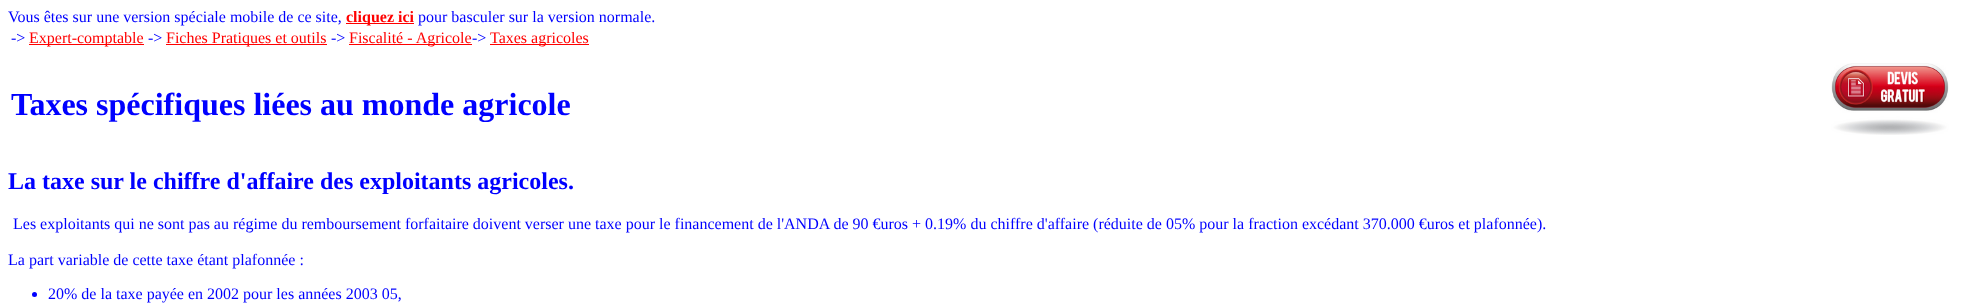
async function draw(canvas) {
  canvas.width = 1966
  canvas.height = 308
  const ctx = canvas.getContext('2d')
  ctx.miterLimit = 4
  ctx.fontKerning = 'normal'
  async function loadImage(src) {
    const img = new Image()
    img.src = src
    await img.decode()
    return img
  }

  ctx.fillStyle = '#fff'
  ctx.fillRect(0, 0, 1966, 308)
  ctx.font = '16px Liberation Serif'
  ctx.fillStyle = '#00f'
  ctx.fillText('Vous êtes sur une version spéciale mobile de ce site,', 8, 22)
  ctx.fillStyle = '#f00'
  ctx.fillRect(346, 23, 68, 1)
  ctx.font = 'bold 16px Liberation Serif'
  ctx.fillText('cliquez ici', 346, 22)
  ctx.font = '16px Liberation Serif'
  ctx.fillStyle = '#00f'
  ctx.fillText('pour basculer sur la version normale.', 418, 22)
  ctx.fillText('->', 11, 43)
  ctx.fillStyle = '#f00'
  ctx.fillRect(29, 44, 115, 1)
  ctx.fillText('Expert-comptable', 29, 43)
  ctx.fillStyle = '#00f'
  ctx.fillText('->', 148, 43)
  ctx.fillStyle = '#f00'
  ctx.fillRect(166, 44, 161, 1)
  ctx.fillText('Fiches Pratiques et outils', 166, 43)
  ctx.fillStyle = '#00f'
  ctx.fillText('->', 331, 43)
  ctx.fillStyle = '#f00'
  ctx.fillRect(349, 44, 123, 1)
  ctx.fillText('Fiscalité - Agricole', 349, 43)
  ctx.fillStyle = '#00f'
  ctx.fillText('->', 472, 43)
  ctx.fillStyle = '#f00'
  ctx.fillRect(490, 44, 99, 1)
  ctx.fillText('Taxes agricoles', 490, 43)
  ctx.font = 'bold 32px Liberation Serif'
  ctx.fillStyle = '#00f'
  ctx.fillText('Taxes spécifiques liées au monde agricole', 11, 115)
  ctx.drawImage(await loadImage('image0.png'), 1831, 63, 118, 72)
  ctx.font = 'bold 24px Liberation Serif'
  ctx.fillText('La taxe sur le chiffre d\'affaire des exploitants agricoles.', 8, 189)
  ctx.font = '16px Liberation Serif'
  ctx.fillText('Les exploitants qui ne sont pas au régime du remboursement forfaitaire doivent verser une taxe pour le financement de l\'ANDA de 90 €uros + 0.19% du chiffre d\'affaire (réduite de 05% pour la fraction excédant 370.000 €uros et plafonnée).', 13, 229)
  ctx.fillText('La part variable de cette taxe étant plafonnée :', 8, 265)
  ctx.beginPath()
  ctx.arc(34.5, 294.5, 2.5, 0, 2 * Math.PI)
  ctx.fill()
  ctx.fillText('20% de la taxe payée en 2002 pour les années 2003 05,', 48, 299)
}

draw(document.querySelector('canvas'))
